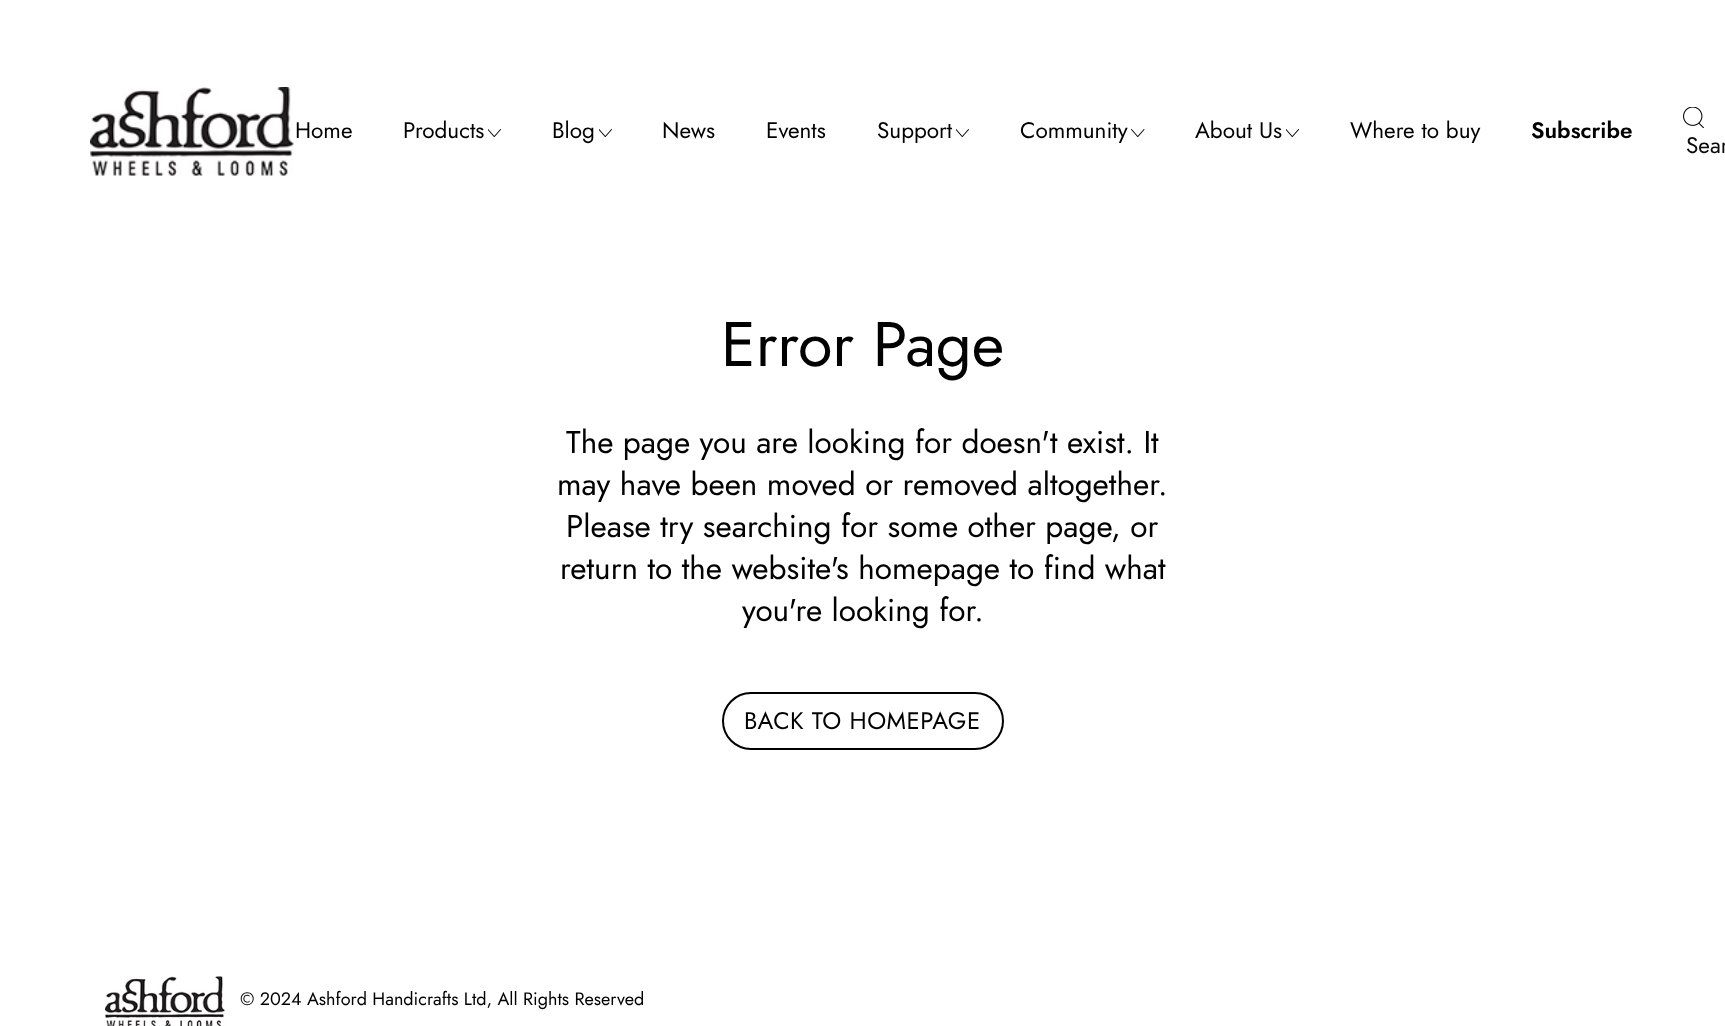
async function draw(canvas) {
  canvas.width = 1725
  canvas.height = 1026
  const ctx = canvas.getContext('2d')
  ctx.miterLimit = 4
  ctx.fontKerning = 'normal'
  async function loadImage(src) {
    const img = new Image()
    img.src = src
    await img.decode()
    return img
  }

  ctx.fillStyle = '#fff'
  ctx.fillRect(0, 0, 1725, 1026)
  ctx.drawImage(await loadImage('image0.png'), 90, 87, 204, 89)
  ctx.font = '22.5px Jost'
  ctx.fillStyle = '#000'
  ctx.fillText('Home', 295, 138)
  ctx.fillText('Products', 403, 138)
  ctx.drawImage(await loadImage('image1.png'), 488, 129, 13, 8)
  ctx.fillText('Blog', 552, 138)
  ctx.drawImage(await loadImage('image1.png'), 599, 129, 13, 8)
  ctx.fillText('News', 662, 138)
  ctx.fillText('Events', 766, 138)
  ctx.fillText('Support', 877, 138)
  ctx.drawImage(await loadImage('image1.png'), 956, 129, 13, 8)
  ctx.fillText('Community', 1020, 138)
  ctx.drawImage(await loadImage('image2.png'), 1131, 129, 14, 8)
  ctx.fillText('About Us', 1195, 138)
  ctx.drawImage(await loadImage('image1.png'), 1286, 129, 13, 8)
  ctx.fillText('Where to buy', 1350, 138)
  ctx.font = '600 22.5px Jost'
  ctx.fillText('Subscribe', 1531, 138)
  ctx.drawImage(await loadImage('image3.png'), 1683, 107, 21, 21)
  ctx.font = '22.5px Jost'
  ctx.fillStyle = '#0a0a0a'
  ctx.fillText('Sear', 1686, 153)
  ctx.font = '63px Jost'
  ctx.fillStyle = '#000'
  ctx.fillText('Error Page', 721, 366)
  ctx.font = '31.5px Jost'
  ctx.fillText('The page you are looking for doesn\'t exist. It', 566, 453)
  ctx.fillText('may have been moved or removed altogether.', 557, 495)
  ctx.fillText('Please try searching for some other page, or', 566, 537)
  ctx.fillText('return to the website\'s homepage to find what', 560, 579)
  ctx.fillText('you\'re looking for.', 742, 621)
  ctx.beginPath()
  ctx.roundRect(723, 693, 280, 56, 28)
  ctx.strokeStyle = '#000'
  ctx.lineWidth = 2
  ctx.stroke()
  ctx.letterSpacing = '0.5px'
  ctx.font = '24px Jost'
  ctx.fillText('BACK TO HOMEPAGE', 744, 729)
  ctx.drawImage(await loadImage('image4.png'), 105, 976, 120, 50)
  ctx.letterSpacing = '0px'
  ctx.font = '18px Jost'
  ctx.fillText('© 2024 Ashford Handicrafts Ltd, All Rights Reserved', 240, 1005)
}

draw(document.querySelector('canvas'))
